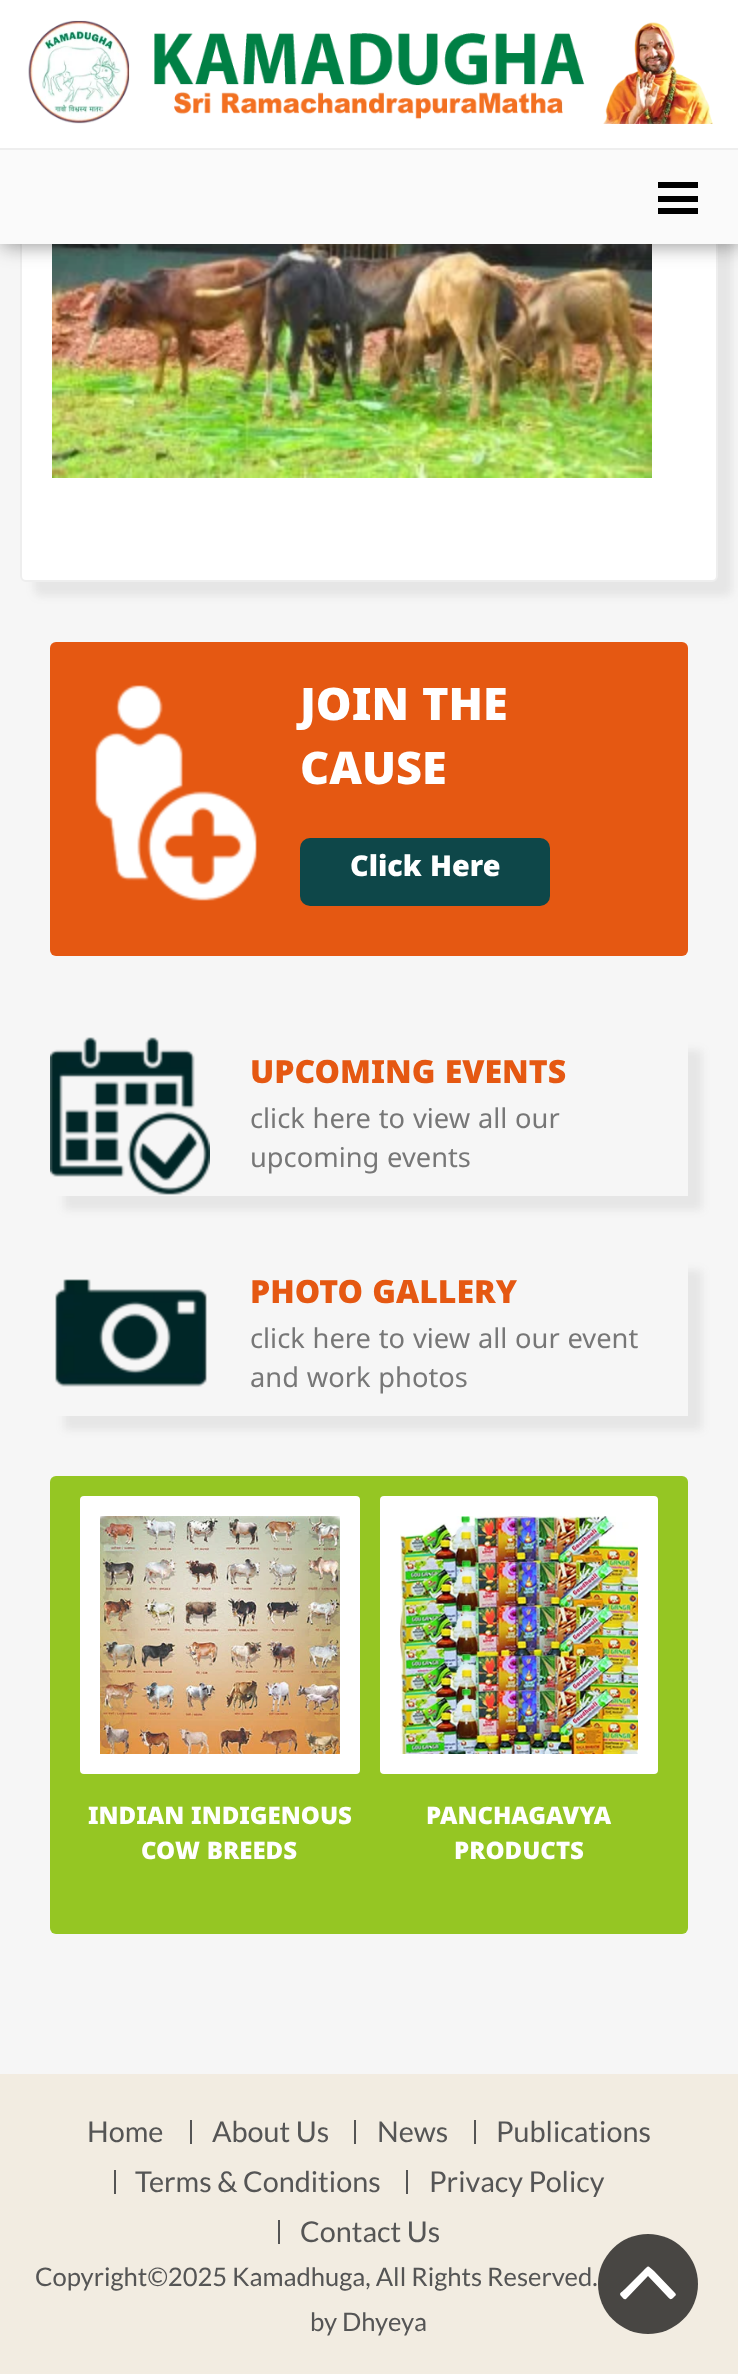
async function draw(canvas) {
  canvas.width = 738
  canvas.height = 2374
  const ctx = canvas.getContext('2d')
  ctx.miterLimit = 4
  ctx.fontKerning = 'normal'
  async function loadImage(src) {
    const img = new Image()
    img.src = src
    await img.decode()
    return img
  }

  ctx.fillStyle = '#f6f6f6'
  ctx.fillRect(0, 0, 738, 2374)
  ctx.fillStyle = '#5a5a5a1a'
  ctx.filter = 'blur(4px)'
  ctx.beginPath()
  ctx.roundRect(34, -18, 698, 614, 6)
  ctx.fill()
  ctx.filter = 'none'
  ctx.fillStyle = '#fff'
  ctx.beginPath()
  ctx.roundRect(21, -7, 696, 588, 5)
  ctx.fill()
  ctx.strokeStyle = '#eee'
  ctx.lineWidth = 2
  ctx.stroke()
  ctx.drawImage(await loadImage('image1.png'), 52, 244, 600, 234)
  ctx.fillStyle = '#32323280'
  ctx.filter = 'blur(10px)'
  ctx.beginPath()
  ctx.rect(2, 2, 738, 244)
  ctx.fill()
  ctx.filter = 'none'
  ctx.fillStyle = '#fff'
  ctx.fillRect(0, 0, 738, 148)
  ctx.drawImage(await loadImage('image0.png'), 28, 20, 685, 104)
  ctx.fillStyle = '#fafafa'
  ctx.fillRect(0, 150, 738, 94)
  ctx.fillStyle = '#eee'
  ctx.fillRect(0, 148, 738, 2)
  ctx.fillStyle = '#000'
  ctx.fillRect(658, 182, 40, 6)
  ctx.fillRect(658, 196, 40, 6)
  ctx.fillRect(658, 208, 40, 6)
  ctx.fillStyle = '#e55812'
  ctx.beginPath()
  ctx.roundRect(50, 642, 638, 314, 6)
  ctx.fill()
  ctx.drawImage(await loadImage('image2.png'), 95, 685, 162, 216)
  ctx.font = '900 45px Noto Sans Kannada'
  ctx.fillStyle = '#fff'
  ctx.fillText('JOIN THE', 300, 720)
  ctx.fillText('CAUSE', 300, 784)
  ctx.fillStyle = '#0e4749'
  ctx.beginPath()
  ctx.roundRect(300, 838, 250, 68, 10)
  ctx.fill()
  ctx.font = '900 28.75px Noto Sans Kannada'
  ctx.fillStyle = '#fff'
  ctx.fillText('Click Here', 350, 876)
  ctx.save()
  ctx.beginPath()
  ctx.moveTo(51, 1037)
  ctx.lineTo(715, 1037)
  ctx.lineTo(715, 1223)
  ctx.lineTo(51, 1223)
  ctx.closePath()
  ctx.moveTo(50, 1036)
  ctx.lineTo(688, 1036)
  ctx.lineTo(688, 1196)
  ctx.lineTo(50, 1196)
  ctx.closePath()
  ctx.clip('evenodd')
  ctx.fillStyle = '#5a5a5a1a'
  ctx.filter = 'blur(4px)'
  ctx.beginPath()
  ctx.rect(64, 1050, 638, 160)
  ctx.fill()
  ctx.filter = 'none'
  ctx.restore()
  ctx.drawImage(await loadImage('image3.png'), 50, 1037, 160, 158)
  ctx.font = '900 32px Noto Sans Kannada'
  ctx.fillStyle = '#e55812'
  ctx.fillText('UPCOMING EVENTS', 250, 1083)
  ctx.font = '27.25px Noto Sans Kannada'
  ctx.fillStyle = '#777'
  ctx.fillText('click here to view all our', 250, 1128)
  ctx.fillText('upcoming events', 250, 1167)
  ctx.save()
  ctx.beginPath()
  ctx.moveTo(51, 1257)
  ctx.lineTo(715, 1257)
  ctx.lineTo(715, 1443)
  ctx.lineTo(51, 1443)
  ctx.closePath()
  ctx.moveTo(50, 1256)
  ctx.lineTo(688, 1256)
  ctx.lineTo(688, 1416)
  ctx.lineTo(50, 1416)
  ctx.closePath()
  ctx.clip('evenodd')
  ctx.fillStyle = '#5a5a5a1a'
  ctx.filter = 'blur(4px)'
  ctx.beginPath()
  ctx.rect(64, 1270, 638, 160)
  ctx.fill()
  ctx.filter = 'none'
  ctx.restore()
  ctx.drawImage(await loadImage('image4.png'), 55, 1279, 152, 108)
  ctx.font = '900 32px Noto Sans Kannada'
  ctx.fillStyle = '#e55812'
  ctx.fillText('PHOTO GALLERY', 250, 1303)
  ctx.font = '27.25px Noto Sans Kannada'
  ctx.fillStyle = '#777'
  ctx.fillText('click here to view all our event', 250, 1348)
  ctx.fillText('and work photos', 250, 1387)
  ctx.fillStyle = '#95c623'
  ctx.beginPath()
  ctx.roundRect(50, 1476, 638, 458, 6)
  ctx.fill()
  ctx.fillStyle = '#fff'
  ctx.beginPath()
  ctx.roundRect(80, 1496, 280, 278, 4)
  ctx.fill()
  ctx.drawImage(await loadImage('image5.png'), 100, 1516, 240, 238)
  ctx.font = '900 24px Noto Sans Kannada'
  ctx.fillText('INDIAN INDIGENOUS', 88, 1824)
  ctx.fillText('COW BREEDS', 141, 1859)
  ctx.beginPath()
  ctx.roundRect(380, 1496, 278, 278, 4)
  ctx.fill()
  ctx.drawImage(await loadImage('image6.png'), 400, 1516, 238, 238)
  ctx.fillText('PANCHAGAVYA', 426, 1824)
  ctx.fillText('PRODUCTS', 454, 1859)
  ctx.fillStyle = '#f2ece1'
  ctx.fillRect(0, 2074, 738, 300)
  ctx.font = '28.75px Lato'
  ctx.fillStyle = '#555'
  ctx.fillText('Home', 87, 2142)
  ctx.fillRect(190, 2120, 2, 24)
  ctx.fillText('About Us', 212, 2142)
  ctx.fillRect(354, 2120, 2, 24)
  ctx.fillText('News', 377, 2142)
  ctx.fillRect(474, 2120, 2, 24)
  ctx.fillText('Publications', 496, 2142)
  ctx.fillRect(114, 2170, 2, 24)
  ctx.fillText('Terms & Conditions', 135, 2192)
  ctx.fillRect(406, 2170, 2, 24)
  ctx.fillText('Privacy Policy', 429, 2192)
  ctx.fillRect(278, 2220, 2, 24)
  ctx.fillText('Contact Us', 300, 2242)
  ctx.font = '25.6px Lato'
  ctx.fillText('Copyright©2025 Kamadhuga, All Rights Reserved.', 35, 2286)
  ctx.fillText('by Dhyeya', 310, 2331)
  ctx.fillStyle = '#000000b3'
  ctx.beginPath()
  ctx.arc(648, 2284, 50, 0, 2 * Math.PI)
  ctx.fill()
  ctx.fillStyle = '#fff'
  ctx.beginPath()
  ctx.moveTo(675, 2293)
  ctx.bezierCurveTo(677, 2295, 675, 2296, 674, 2297)
  ctx.bezierCurveTo(670, 2301, 670, 2299, 666, 2295)
  ctx.lineTo(648, 2276)
  ctx.lineTo(626, 2299)
  ctx.bezierCurveTo(624, 2300, 623, 2298, 622, 2297)
  ctx.bezierCurveTo(618, 2293, 621, 2293, 625, 2289)
  ctx.lineTo(643, 2271)
  ctx.bezierCurveTo(649, 2265, 647, 2265, 654, 2271)
  ctx.closePath()
  ctx.fill()
}

draw(document.querySelector('canvas'))
